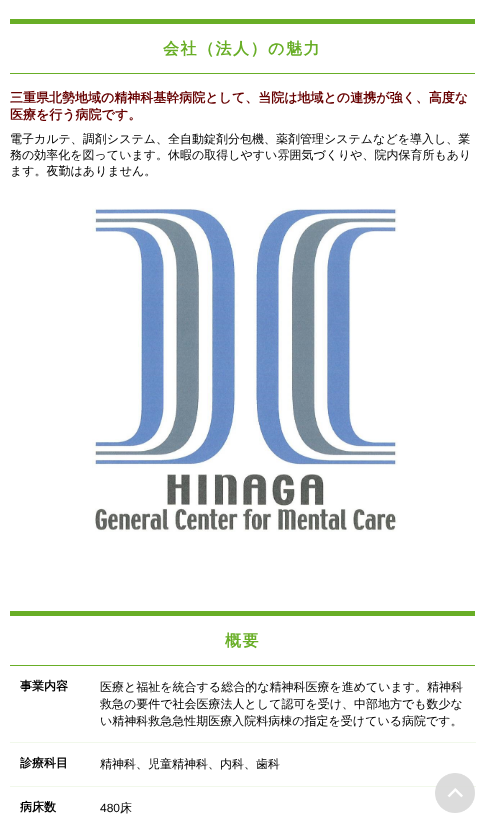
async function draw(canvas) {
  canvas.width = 485
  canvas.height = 823
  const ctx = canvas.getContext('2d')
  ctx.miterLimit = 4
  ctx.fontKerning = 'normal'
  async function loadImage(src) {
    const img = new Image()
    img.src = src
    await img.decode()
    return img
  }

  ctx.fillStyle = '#fff'
  ctx.fillRect(0, 0, 485, 823)
  ctx.fillStyle = '#68ae26'
  ctx.fillRect(10, 19, 465, 5)
  ctx.fillRect(10, 73, 465, 1)
  ctx.letterSpacing = '1.5px'
  ctx.font = 'bold 16px WenQuanYi Zen Hei'
  ctx.fillText('会社（法人）の魅力', 163, 54)
  ctx.letterSpacing = '0px'
  ctx.font = 'bold 13px WenQuanYi Zen Hei'
  ctx.fillStyle = '#600'
  ctx.fillText('三重県北勢地域の精神科基幹病院として、当院は地域との連携が強く、高度な', 10, 102)
  ctx.fillText('医療を行う病院です。', 10, 119)
  ctx.font = '500 12px WenQuanYi Zen Hei'
  ctx.fillStyle = '#000'
  ctx.fillText('電子カルテ、調剤システム、全自動錠剤分包機、薬剤管理システムなどを導入し、業', 10, 143)
  ctx.fillText('務の効率化を図っています。休暇の取得しやすい雰囲気づくりや、院内保育所もあり', 10, 159)
  ctx.fillText('ます。夜勤はありません。', 10, 175)
  ctx.drawImage(await loadImage('image0.png'), 92, 208, 306, 324)
  ctx.fillStyle = '#68ae26'
  ctx.fillRect(10, 611, 465, 5)
  ctx.fillRect(10, 665, 465, 1)
  ctx.letterSpacing = '1.5px'
  ctx.font = 'bold 16px WenQuanYi Zen Hei'
  ctx.fillText('概要', 225, 646)
  ctx.letterSpacing = '0px'
  ctx.font = 'bold 12px WenQuanYi Zen Hei'
  ctx.fillStyle = '#000'
  ctx.fillText('事業内容', 20, 690)
  ctx.fillStyle = '#f1f8eb'
  ctx.fillRect(10, 742, 466, 1)
  ctx.font = '500 12px WenQuanYi Zen Hei'
  ctx.fillStyle = '#000'
  ctx.fillText('医療と福祉を統合する総合的な精神科医療を進めています。精神科', 100, 691)
  ctx.fillText('救急の要件で社会医療法人として認可を受け、中部地方でも数少な', 100, 708)
  ctx.fillText('い精神科救急急性期医療入院料病棟の指定を受けている病院です。', 100, 725)
  ctx.font = 'bold 12px WenQuanYi Zen Hei'
  ctx.fillText('診療科目', 20, 767)
  ctx.fillStyle = '#f1f8eb'
  ctx.fillRect(10, 786, 466, 1)
  ctx.font = '500 12px WenQuanYi Zen Hei'
  ctx.fillStyle = '#000'
  ctx.fillText('精神科、児童精神科、内科、歯科', 100, 768)
  ctx.font = 'bold 12px WenQuanYi Zen Hei'
  ctx.fillText('病床数', 20, 811)
  ctx.font = '12px Liberation Sans'
  ctx.fillText('480', 100, 812)
  ctx.font = '500 12px WenQuanYi Zen Hei'
  ctx.fillText('床', 120, 812)
  ctx.drawImage(await loadImage('image1.png'), 435, 773, 40, 40)
}

draw(document.querySelector('canvas'))
